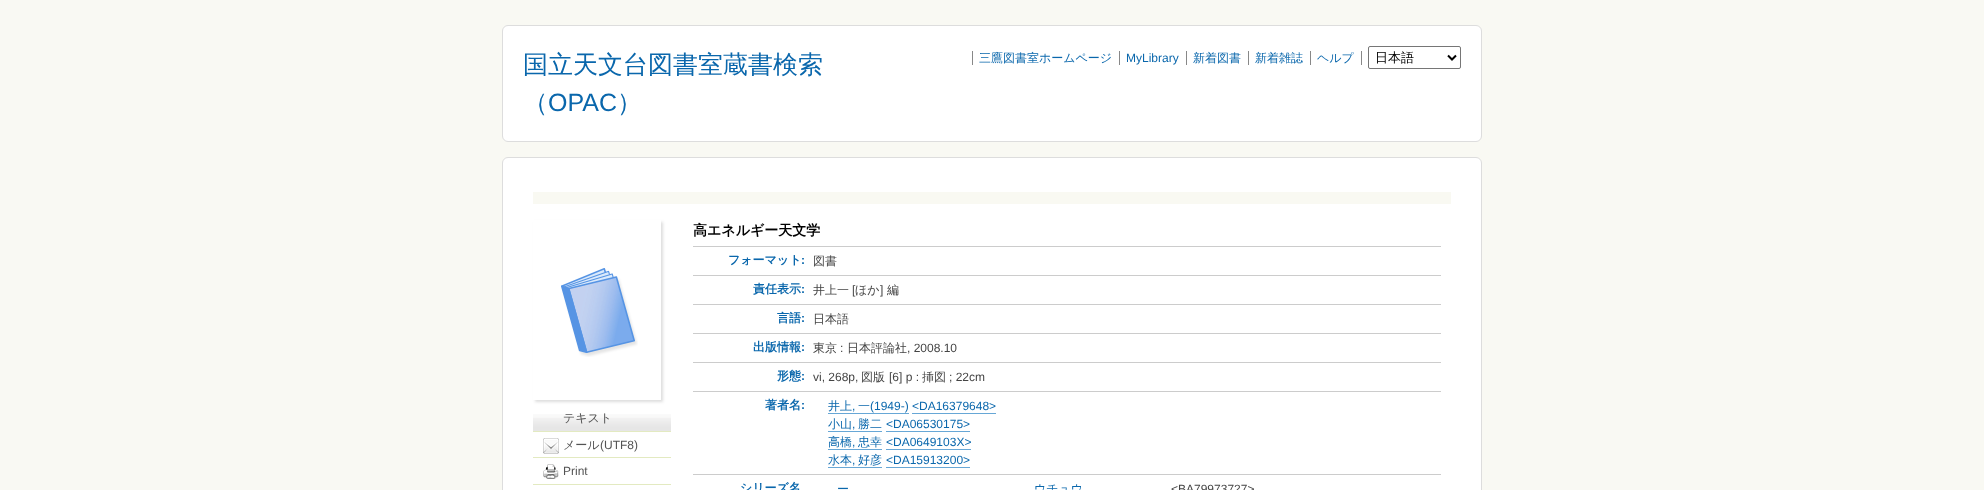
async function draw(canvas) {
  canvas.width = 1984
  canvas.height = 490
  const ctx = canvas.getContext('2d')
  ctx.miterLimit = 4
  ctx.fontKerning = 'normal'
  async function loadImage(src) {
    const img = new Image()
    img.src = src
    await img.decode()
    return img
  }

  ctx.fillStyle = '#f9f9f3'
  ctx.fillRect(0, 0, 1984, 490)
  ctx.fillStyle = '#fff'
  ctx.beginPath()
  ctx.roundRect(502.5, 25.5, 979, 116, 5.5)
  ctx.fill()
  ctx.strokeStyle = '#ddd'
  ctx.stroke()
  ctx.font = '500 25px WenQuanYi Zen Hei'
  ctx.fillStyle = '#0a67ac'
  ctx.fillText('国立天文台図書室蔵書検索', 523, 73)
  ctx.fillText('（', 523, 111)
  ctx.font = '25px Liberation Sans'
  ctx.fillText('OPAC', 548, 111)
  ctx.font = '500 25px WenQuanYi Zen Hei'
  ctx.fillText('）', 617, 111)
  ctx.font = '500 12px WenQuanYi Zen Hei'
  ctx.fillText('三鷹図書室ホームページ', 979, 62)
  ctx.fillStyle = '#888'
  ctx.fillRect(972, 51, 1, 14)
  ctx.font = '12px Liberation Sans'
  ctx.fillStyle = '#0a67ac'
  ctx.fillText('MyLibrary', 1126, 62)
  ctx.fillStyle = '#888'
  ctx.fillRect(1119, 51, 1, 14)
  ctx.font = '500 12px WenQuanYi Zen Hei'
  ctx.fillStyle = '#0a67ac'
  ctx.fillText('新着図書', 1193, 62)
  ctx.fillStyle = '#888'
  ctx.fillRect(1186, 51, 1, 14)
  ctx.fillStyle = '#0a67ac'
  ctx.fillText('新着雑誌', 1255, 62)
  ctx.fillStyle = '#888'
  ctx.fillRect(1248, 51, 1, 14)
  ctx.fillStyle = '#0a67ac'
  ctx.fillText('ヘルプ', 1317, 62)
  ctx.fillStyle = '#888'
  ctx.fillRect(1310, 51, 1, 14)
  ctx.fillRect(1361, 51, 1, 14)
  ctx.beginPath()
  ctx.roundRect(1368.5, 46.5, 92, 22, 1.5)
  ctx.strokeStyle = '#767676'
  ctx.stroke()
  ctx.beginPath()
  ctx.moveTo(1448, 55.5)
  ctx.lineTo(1452, 59.5)
  ctx.lineTo(1456, 55.5)
  ctx.strokeStyle = '#000'
  ctx.lineWidth = 2
  ctx.stroke()
  ctx.font = '500 13px WenQuanYi Zen Hei'
  ctx.fillStyle = '#000'
  ctx.fillText('日本語', 1375, 62)
  ctx.fillStyle = '#fff'
  ctx.beginPath()
  ctx.roundRect(502.5, 157.5, 979, 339, 5.5)
  ctx.fill()
  ctx.strokeStyle = '#ddd'
  ctx.lineWidth = 1
  ctx.stroke()
  ctx.fillStyle = '#f9f9f2'
  ctx.fillRect(533, 192, 918, 12)
  ctx.save()
  ctx.beginPath()
  ctx.moveTo(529, 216)
  ctx.lineTo(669, 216)
  ctx.lineTo(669, 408)
  ctx.lineTo(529, 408)
  ctx.closePath()
  ctx.moveTo(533, 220)
  ctx.lineTo(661, 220)
  ctx.lineTo(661, 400)
  ctx.lineTo(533, 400)
  ctx.closePath()
  ctx.clip('evenodd')
  ctx.fillStyle = '#ddd'
  ctx.filter = 'blur(1.5px)'
  ctx.beginPath()
  ctx.rect(535, 222, 128, 180)
  ctx.fill()
  ctx.filter = 'none'
  ctx.restore()
  ctx.drawImage(await loadImage('image0.png'), 561, 268, 77, 89)
  ctx.drawImage(await loadImage('image1.png'), 533, 414, 138, 17)
  ctx.fillStyle = '#e3eac1'
  ctx.fillRect(533, 431, 138, 1)
  ctx.font = '500 12px WenQuanYi Zen Hei'
  ctx.fillStyle = '#535353'
  ctx.fillText('テキスト', 563, 422)
  ctx.drawImage(await loadImage('image2.png'), 543, 438, 16, 16)
  ctx.fillStyle = '#e3eac1'
  ctx.fillRect(533, 457, 138, 1)
  ctx.fillStyle = '#535353'
  ctx.fillText('メール', 563, 449)
  ctx.font = '12px Liberation Sans'
  ctx.fillText('(UTF8)', 600, 449)
  ctx.drawImage(await loadImage('image3.png'), 543, 464, 16, 15)
  ctx.fillStyle = '#e3eac1'
  ctx.fillRect(533, 484, 138, 1)
  ctx.fillStyle = '#535353'
  ctx.fillText('Print', 563, 475)
  ctx.font = 'bold 14px WenQuanYi Zen Hei'
  ctx.fillStyle = '#000'
  ctx.fillText('高エネルギー天文学', 693, 235)
  ctx.font = 'bold 12px WenQuanYi Zen Hei'
  ctx.fillStyle = '#0a67ac'
  ctx.fillText('フォーマット', 728, 264)
  ctx.font = 'bold 12px Liberation Sans'
  ctx.fillText(':', 801, 264)
  ctx.fillStyle = '#ccc'
  ctx.fillRect(693, 246, 748, 1)
  ctx.font = '500 12px WenQuanYi Zen Hei'
  ctx.fillStyle = '#444'
  ctx.fillText('図書', 813, 265)
  ctx.font = 'bold 12px WenQuanYi Zen Hei'
  ctx.fillStyle = '#0a67ac'
  ctx.fillText('責任表示', 753, 293)
  ctx.font = 'bold 12px Liberation Sans'
  ctx.fillText(':', 801, 293)
  ctx.fillStyle = '#ccc'
  ctx.fillRect(693, 275, 748, 1)
  ctx.font = '500 12px WenQuanYi Zen Hei'
  ctx.fillStyle = '#444'
  ctx.fillText('井上一', 813, 294)
  ctx.font = '12px Liberation Sans'
  ctx.fillText('[', 852, 294)
  ctx.font = '500 12px WenQuanYi Zen Hei'
  ctx.fillText('ほか', 855, 294)
  ctx.font = '12px Liberation Sans'
  ctx.fillText(']', 880, 294)
  ctx.font = '500 12px WenQuanYi Zen Hei'
  ctx.fillText('編', 887, 294)
  ctx.font = 'bold 12px WenQuanYi Zen Hei'
  ctx.fillStyle = '#0a67ac'
  ctx.fillText('言語', 777, 322)
  ctx.font = 'bold 12px Liberation Sans'
  ctx.fillText(':', 801, 322)
  ctx.fillStyle = '#ccc'
  ctx.fillRect(693, 304, 748, 1)
  ctx.font = '500 12px WenQuanYi Zen Hei'
  ctx.fillStyle = '#444'
  ctx.fillText('日本語', 813, 323)
  ctx.font = 'bold 12px WenQuanYi Zen Hei'
  ctx.fillStyle = '#0a67ac'
  ctx.fillText('出版情報', 753, 351)
  ctx.font = 'bold 12px Liberation Sans'
  ctx.fillText(':', 801, 351)
  ctx.fillStyle = '#ccc'
  ctx.fillRect(693, 333, 748, 1)
  ctx.font = '500 12px WenQuanYi Zen Hei'
  ctx.fillStyle = '#444'
  ctx.fillText('東京', 813, 352)
  ctx.font = '12px Liberation Sans'
  ctx.fillText(':', 840, 352)
  ctx.font = '500 12px WenQuanYi Zen Hei'
  ctx.fillText('日本評論社', 847, 352)
  ctx.font = '12px Liberation Sans'
  ctx.fillText(', 2008.10', 907, 352)
  ctx.font = 'bold 12px WenQuanYi Zen Hei'
  ctx.fillStyle = '#0a67ac'
  ctx.fillText('形態', 777, 380)
  ctx.font = 'bold 12px Liberation Sans'
  ctx.fillText(':', 801, 380)
  ctx.fillStyle = '#ccc'
  ctx.fillRect(693, 362, 748, 1)
  ctx.font = '12px Liberation Sans'
  ctx.fillStyle = '#444'
  ctx.fillText('vi, 268p,', 813, 381)
  ctx.font = '500 12px WenQuanYi Zen Hei'
  ctx.fillText('図版', 861, 381)
  ctx.font = '12px Liberation Sans'
  ctx.fillText('[6] p :', 889, 381)
  ctx.font = '500 12px WenQuanYi Zen Hei'
  ctx.fillText('挿図', 922, 381)
  ctx.font = '12px Liberation Sans'
  ctx.fillText('; 22cm', 949, 381)
  ctx.font = 'bold 12px WenQuanYi Zen Hei'
  ctx.fillStyle = '#0a67ac'
  ctx.fillText('著者名', 765, 409)
  ctx.font = 'bold 12px Liberation Sans'
  ctx.fillText(':', 801, 409)
  ctx.fillStyle = '#ccc'
  ctx.fillRect(693, 391, 748, 1)
  ctx.font = '500 12px WenQuanYi Zen Hei'
  ctx.fillStyle = '#0a67ac'
  ctx.fillText('井上', 828, 410)
  ctx.fillText('一', 858, 410)
  ctx.font = '12px Liberation Sans'
  ctx.fillText('(1949-) <DA16379648>', 870, 410)
  ctx.fillText(',', 852, 410)
  ctx.fillStyle = '#67a7d6'
  ctx.fillRect(828, 413, 81, 1)
  ctx.fillRect(912, 413, 84, 1)
  ctx.font = '500 12px WenQuanYi Zen Hei'
  ctx.fillStyle = '#0a67ac'
  ctx.fillText('小山', 828, 428)
  ctx.font = '12px Liberation Sans'
  ctx.fillText(',', 852, 428)
  ctx.fillStyle = '#67a7d6'
  ctx.fillRect(828, 431, 54, 1)
  ctx.font = '500 12px WenQuanYi Zen Hei'
  ctx.fillStyle = '#0a67ac'
  ctx.fillText('勝二', 858, 428)
  ctx.font = '12px Liberation Sans'
  ctx.fillText('<DA06530175>', 886, 428)
  ctx.fillStyle = '#67a7d6'
  ctx.fillRect(886, 431, 84, 1)
  ctx.font = '500 12px WenQuanYi Zen Hei'
  ctx.fillStyle = '#0a67ac'
  ctx.fillText('高橋', 828, 446)
  ctx.font = '12px Liberation Sans'
  ctx.fillText(',', 852, 446)
  ctx.fillStyle = '#67a7d6'
  ctx.fillRect(828, 449, 54, 1)
  ctx.font = '500 12px WenQuanYi Zen Hei'
  ctx.fillStyle = '#0a67ac'
  ctx.fillText('忠幸', 858, 446)
  ctx.font = '12px Liberation Sans'
  ctx.fillText('<DA0649103X>', 886, 446)
  ctx.fillStyle = '#67a7d6'
  ctx.fillRect(886, 449, 85, 1)
  ctx.font = '500 12px WenQuanYi Zen Hei'
  ctx.fillStyle = '#0a67ac'
  ctx.fillText('水本', 828, 464)
  ctx.font = '12px Liberation Sans'
  ctx.fillText(',', 852, 464)
  ctx.fillStyle = '#67a7d6'
  ctx.fillRect(828, 467, 54, 1)
  ctx.font = '500 12px WenQuanYi Zen Hei'
  ctx.fillStyle = '#0a67ac'
  ctx.fillText('好彦', 858, 464)
  ctx.font = '12px Liberation Sans'
  ctx.fillText('<DA15913200>', 886, 464)
  ctx.fillStyle = '#67a7d6'
  ctx.fillRect(886, 467, 84, 1)
  ctx.font = 'bold 12px WenQuanYi Zen Hei'
  ctx.fillStyle = '#0a67ac'
  ctx.fillText('シリーズ名', 740, 492)
  ctx.fillStyle = '#ccc'
  ctx.fillRect(693, 474, 748, 1)
  ctx.font = '500 12px WenQuanYi Zen Hei'
  ctx.fillStyle = '#0a67ac'
  ctx.fillText('ー', 837, 493)
  ctx.fillText('ウチュウ', 1034, 493)
  ctx.font = '12px Liberation Sans'
  ctx.fillStyle = '#444'
  ctx.fillText('<BA79973727>', 1171, 493)
}

draw(document.querySelector('canvas'))
